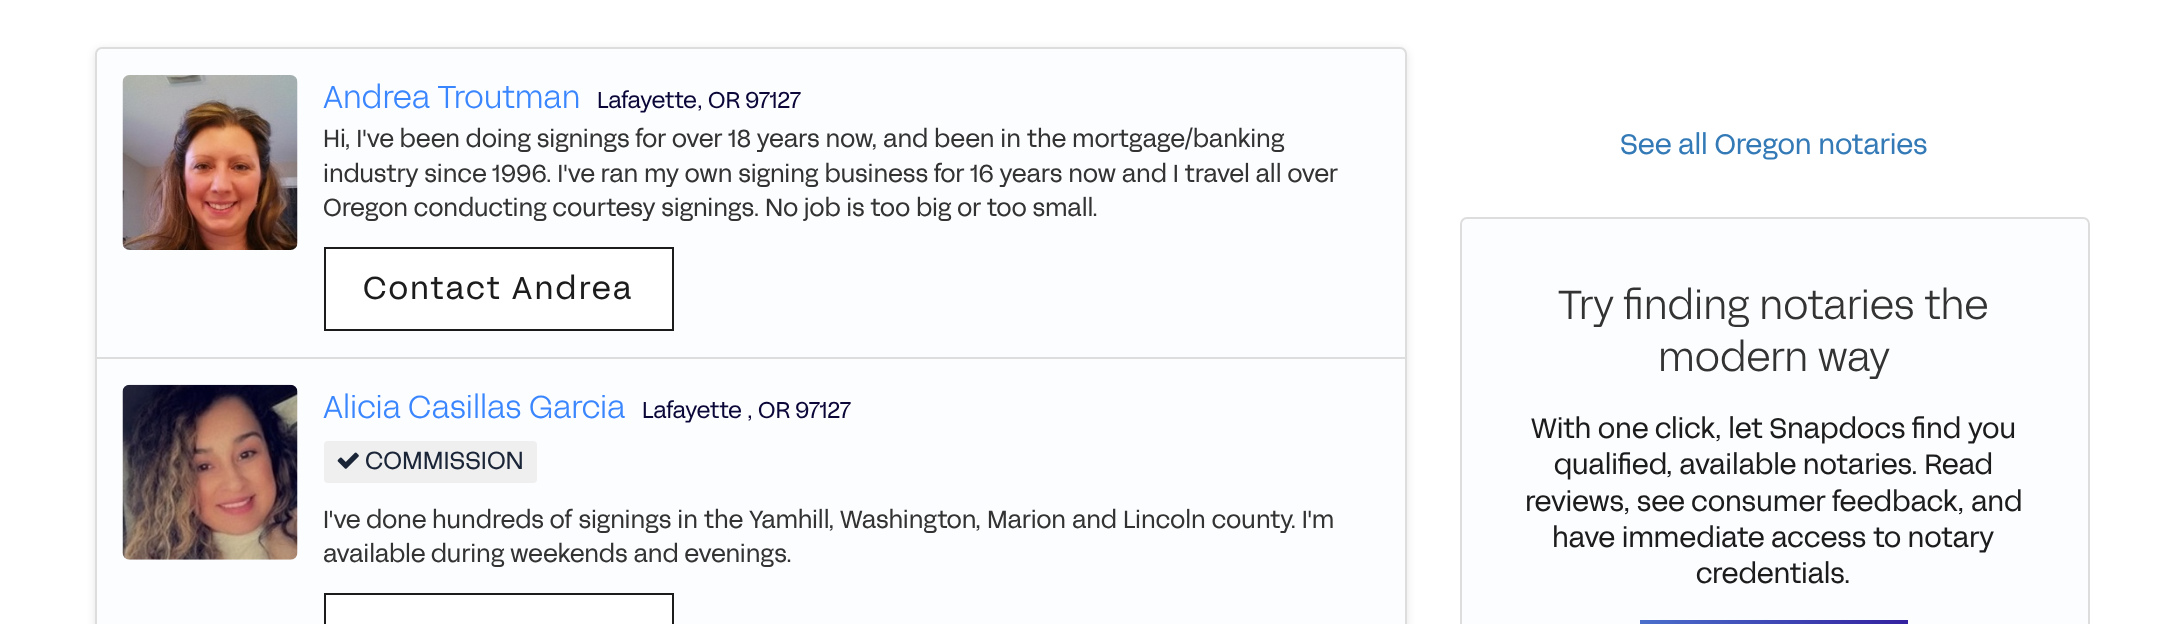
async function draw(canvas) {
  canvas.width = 2182
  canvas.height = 624
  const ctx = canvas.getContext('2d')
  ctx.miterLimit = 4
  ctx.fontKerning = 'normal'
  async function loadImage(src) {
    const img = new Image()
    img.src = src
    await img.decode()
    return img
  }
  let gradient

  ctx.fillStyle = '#fff'
  ctx.fillRect(0, 0, 2182, 624)
  ctx.fillStyle = '#0000001a'
  ctx.filter = 'blur(4.5px)'
  ctx.beginPath()
  ctx.roundRect(95, 49, 1312, 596, 7)
  ctx.fill()
  ctx.filter = 'none'
  ctx.fillStyle = '#fcfdff'
  ctx.beginPath()
  ctx.roundRect(96, 48, 1310, 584, 6)
  ctx.fill()
  ctx.strokeStyle = '#ddd'
  ctx.lineWidth = 2
  ctx.stroke()
  ctx.fillStyle = '#ddd'
  ctx.fillRect(95, 357, 1310, 2)
  ctx.drawImage(await loadImage('image0.png'), 122, 75, 176, 175)
  ctx.font = '300 31.5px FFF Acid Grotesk'
  ctx.fillStyle = '#3a86ff'
  ctx.fillText('Andrea Troutman', 323, 108)
  ctx.font = '22.75px FFF Acid Grotesk'
  ctx.fillStyle = '#0a0637'
  ctx.fillText('Lafayette', 597, 108)
  ctx.fillText(', OR 97127', 697, 108)
  ctx.font = '24.5px FFF Acid Grotesk'
  ctx.fillStyle = '#333'
  ctx.fillText('Hi, I\'ve been doing signings for over 18 years now, and been in the mortgage/banking', 323, 147)
  ctx.fillText('industry since 1996. I\'ve ran my own signing business for 16 years now and I travel all over', 323, 182)
  ctx.fillText('Oregon conducting courtesy signings. No job is too big or too small.', 323, 216)
  ctx.fillStyle = '#fff'
  ctx.beginPath()
  ctx.rect(325, 248, 348, 82)
  ctx.fill()
  ctx.strokeStyle = '#1c1c1d'
  ctx.stroke()
  ctx.letterSpacing = '2.25px'
  ctx.font = '31.5px FFF Acid Grotesk'
  ctx.fillStyle = '#1c1c1d'
  ctx.fillText('Contact Andrea', 363, 299)
  ctx.drawImage(await loadImage('image1.png'), 122, 384, 176, 176)
  ctx.letterSpacing = '0px'
  ctx.font = '300 31.5px FFF Acid Grotesk'
  ctx.fillStyle = '#3a86ff'
  ctx.fillText('Alicia Casillas Garcia', 323, 418)
  ctx.font = '22.75px FFF Acid Grotesk'
  ctx.fillStyle = '#0a0637'
  ctx.fillText('Lafayette , OR 97127', 642, 418)
  ctx.fillStyle = '#efefef'
  ctx.beginPath()
  ctx.roundRect(324, 441, 213, 42, 4)
  ctx.fill()
  ctx.drawImage(await loadImage('image2.png'), 337, 452, 22, 17)
  ctx.font = '24.5px FFF Acid Grotesk'
  ctx.fillStyle = '#1a2538'
  ctx.fillText('COMMISSION', 365, 469)
  ctx.fillStyle = '#333'
  ctx.fillText('I\'ve done hundreds of signings in the Yamhill, Washington, Marion and Lincoln county. I\'m', 323, 528)
  ctx.fillText('available during weekends and evenings.', 323, 562)
  ctx.fillStyle = '#fff'
  ctx.beginPath()
  ctx.rect(325, 594, 348, 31)
  ctx.fill()
  ctx.stroke()
  ctx.font = '28px FFF Acid Grotesk'
  ctx.fillStyle = '#337ab7'
  ctx.fillText('See all Oregon notaries', 1620, 154)
  ctx.fillStyle = '#fcfdff'
  ctx.beginPath()
  ctx.roundRect(1461, 218, 628, 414, 6)
  ctx.fill()
  ctx.strokeStyle = '#ddd'
  ctx.stroke()
  ctx.font = '300 40.25px FFF Acid Grotesk'
  ctx.fillStyle = '#333'
  ctx.fillText('Try finding notaries the', 1558, 319)
  ctx.fillText('modern way', 1658, 371)
  ctx.font = '28px FFF Acid Grotesk'
  ctx.fillStyle = '#1c1c1d'
  ctx.fillText('With one click, let Snapdocs find you', 1531, 438)
  ctx.fillText('qualified, available notaries. Read', 1554, 474)
  ctx.fillText('reviews, see consumer feedback, and', 1525, 511)
  ctx.fillText('have immediate access to notary', 1552, 547)
  ctx.fillText('credentials.', 1696, 583)
  gradient = ctx.createLinearGradient(1650, 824, 1853, 554)
  gradient.addColorStop(0, '#60baf5')
  gradient.addColorStop(1, '#31179a')
  ctx.fillStyle = gradient
  ctx.fillRect(1640, 620, 268, 4)
}

draw(document.querySelector('canvas'))
